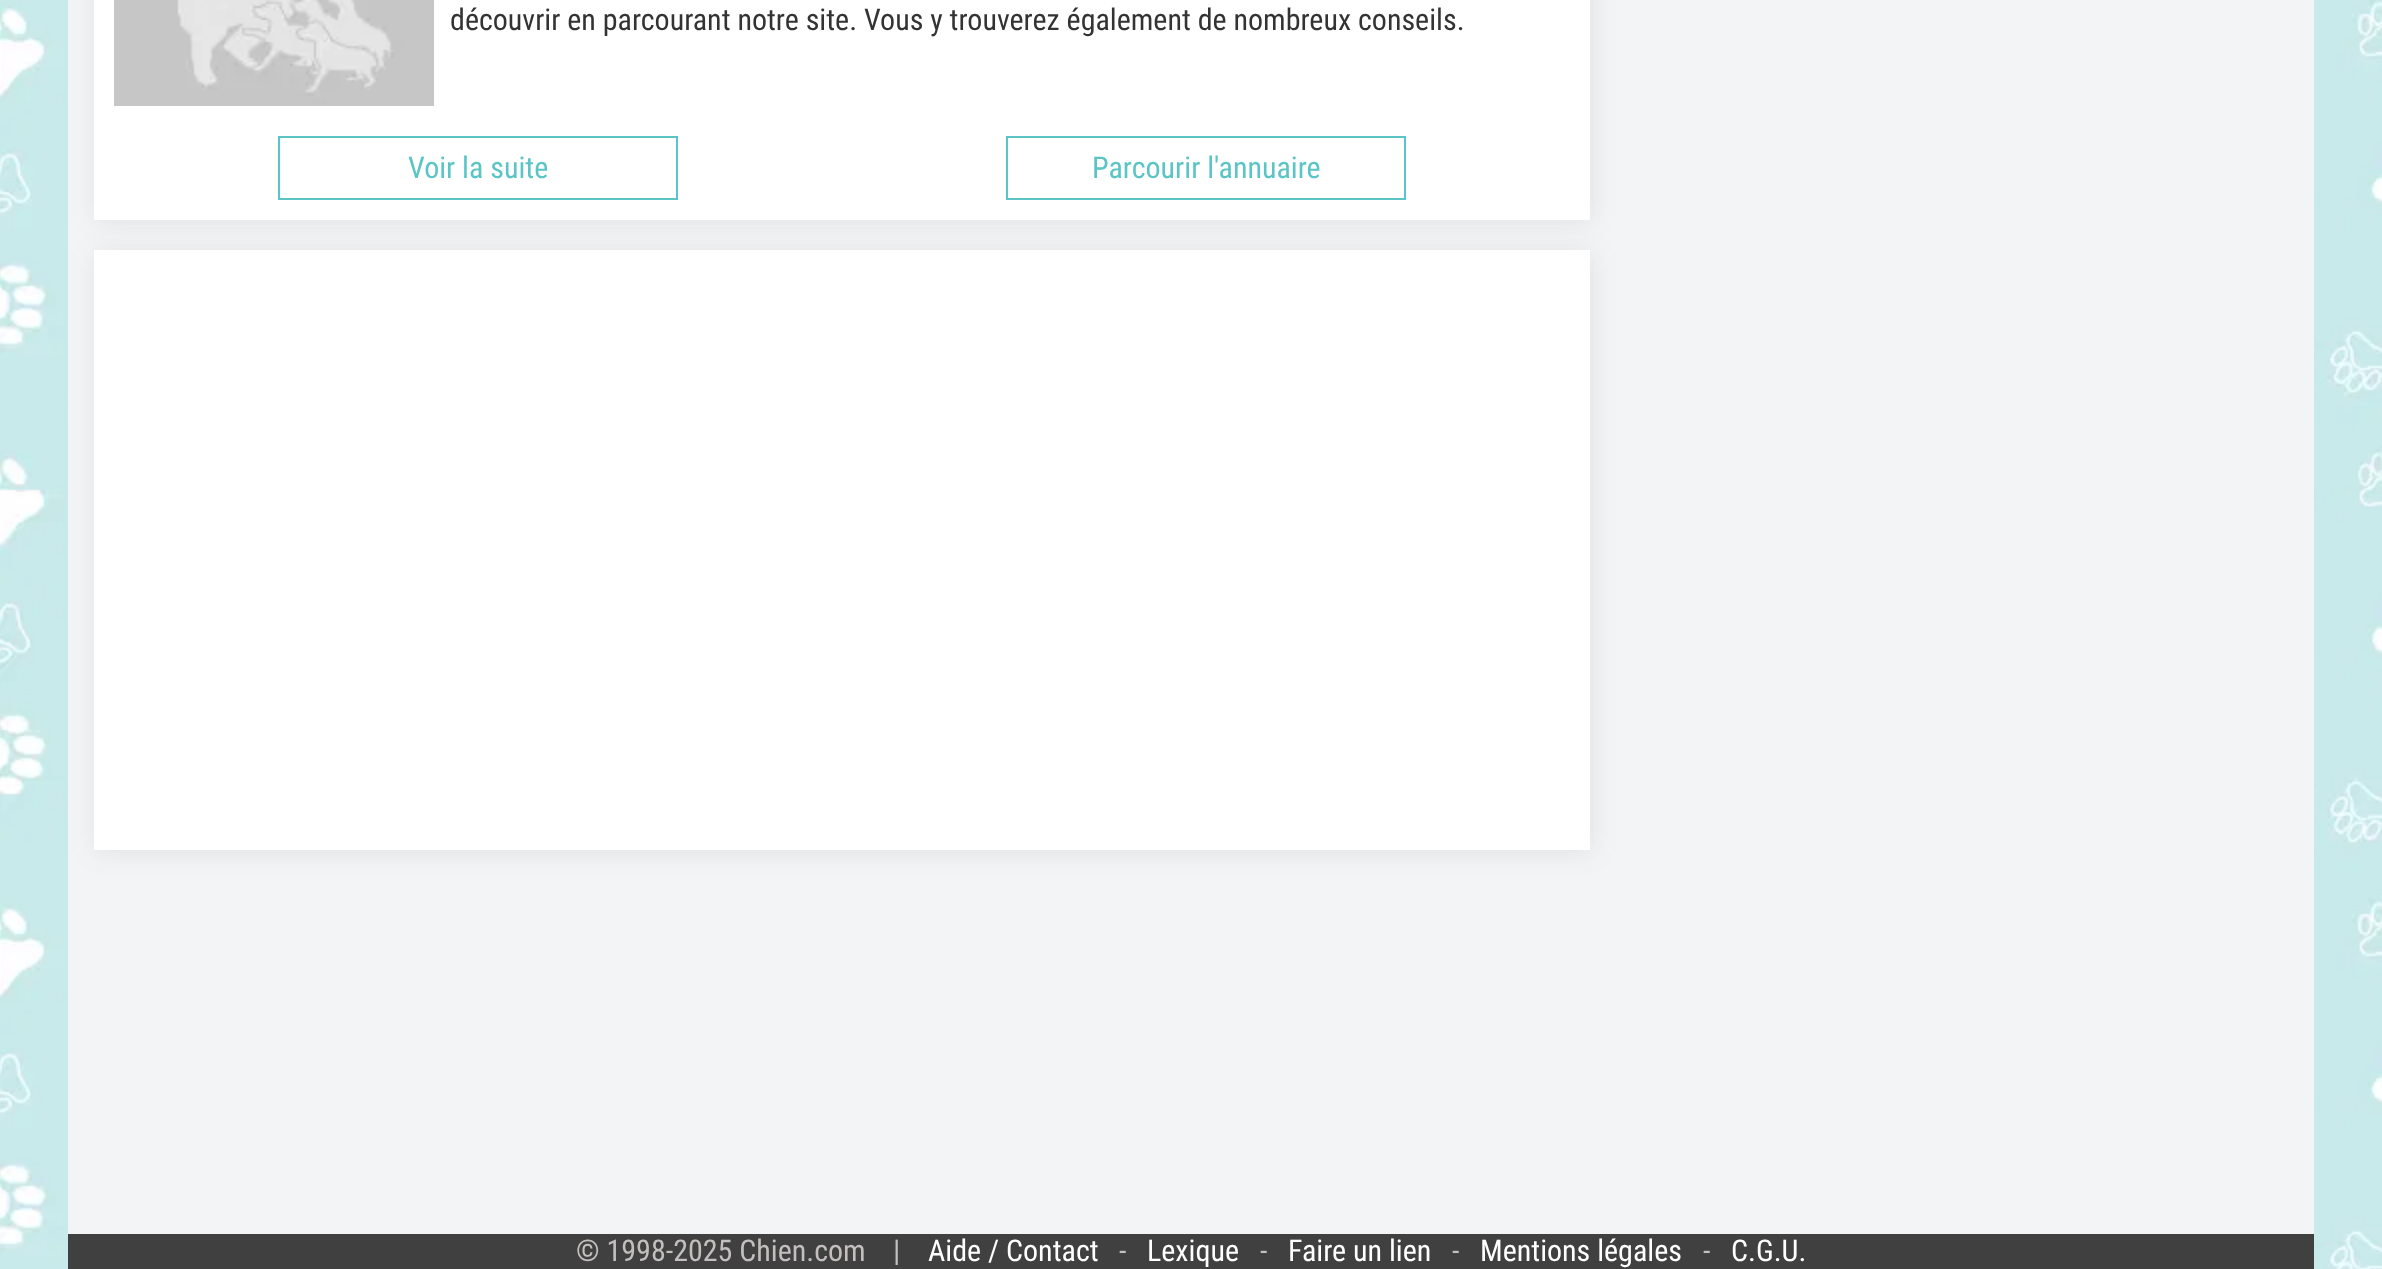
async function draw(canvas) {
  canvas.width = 2382
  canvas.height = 1269
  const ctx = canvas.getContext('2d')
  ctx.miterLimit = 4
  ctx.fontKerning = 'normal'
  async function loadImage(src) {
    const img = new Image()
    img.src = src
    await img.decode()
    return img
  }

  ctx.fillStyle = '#fff'
  ctx.fillRect(0, 0, 2382, 1269)
  ctx.drawImage(await loadImage('image0.png'), 0, 0, 2382, 1269)
  ctx.fillStyle = '#f3f4f5'
  ctx.fillRect(68, 0, 2246, 1234)
  ctx.fillStyle = '#4848481a'
  ctx.filter = 'blur(13px)'
  ctx.beginPath()
  ctx.rect(96, -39, 1496, 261)
  ctx.fill()
  ctx.filter = 'none'
  ctx.fillStyle = '#fff'
  ctx.fillRect(94, 0, 1496, 220)
  ctx.drawImage(await loadImage('image1.png'), 114, 0, 320, 106)
  ctx.font = '30px Roboto Condensed'
  ctx.fillStyle = '#333'
  ctx.fillText('découvrir en parcourant notre site. Vous y trouverez également de nombreux conseils.', 450, 30)
  ctx.strokeStyle = '#5bc5c5'
  ctx.lineWidth = 2
  ctx.strokeRect(279, 137, 398, 62)
  ctx.fillStyle = '#5bc5c5'
  ctx.fillText('Voir la suite', 408, 178)
  ctx.strokeRect(1007, 137, 398, 62)
  ctx.fillText('Parcourir l\'annuaire', 1092, 178)
  ctx.fillStyle = '#4848481a'
  ctx.filter = 'blur(13px)'
  ctx.beginPath()
  ctx.rect(96, 252, 1496, 600)
  ctx.fill()
  ctx.filter = 'none'
  ctx.fillStyle = '#fff'
  ctx.fillRect(94, 250, 1496, 600)
  ctx.fillStyle = '#414040'
  ctx.fillRect(68, 1234, 2246, 35)
  ctx.fillStyle = '#c2bfbe'
  ctx.fillText('© 1998-2025 Chien.com', 576, 1261)
  ctx.fillText('|', 893, 1261)
  ctx.fillStyle = '#fff'
  ctx.fillText('Aide / Contact', 928, 1261)
  ctx.fillStyle = '#c2bfbe'
  ctx.fillText('-', 1119, 1261)
  ctx.fillStyle = '#fff'
  ctx.fillText('Lexique', 1147, 1261)
  ctx.fillStyle = '#c2bfbe'
  ctx.fillText('-', 1260, 1261)
  ctx.fillStyle = '#fff'
  ctx.fillText('Faire un lien', 1288, 1261)
  ctx.fillStyle = '#c2bfbe'
  ctx.fillText('-', 1452, 1261)
  ctx.fillStyle = '#fff'
  ctx.fillText('Mentions légales', 1480, 1261)
  ctx.fillStyle = '#c2bfbe'
  ctx.fillText('-', 1703, 1261)
  ctx.fillStyle = '#fff'
  ctx.fillText('C.G.U.', 1731, 1261)
}

draw(document.querySelector('canvas'))
